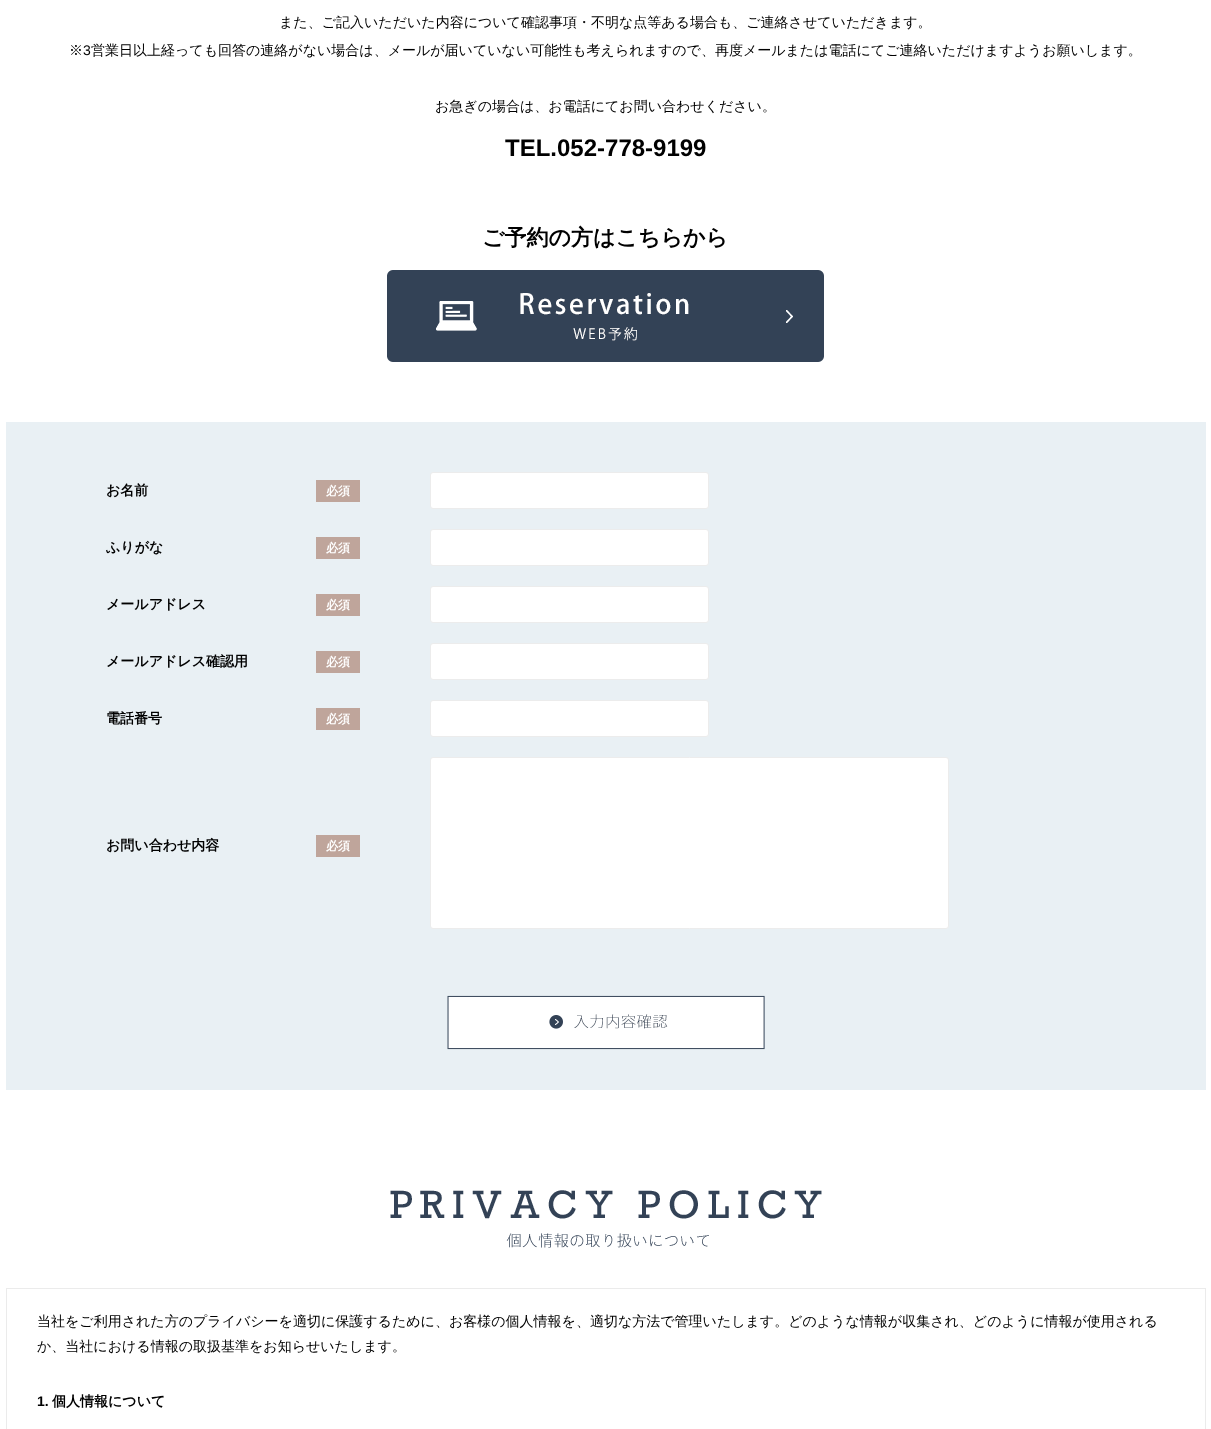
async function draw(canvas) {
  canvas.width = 1211
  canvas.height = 1429
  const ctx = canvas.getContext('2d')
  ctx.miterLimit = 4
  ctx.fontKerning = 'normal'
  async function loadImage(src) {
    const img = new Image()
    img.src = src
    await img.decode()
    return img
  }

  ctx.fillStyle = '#fff'
  ctx.fillRect(0, 0, 1211, 1429)
  ctx.font = '500 14px WenQuanYi Zen Hei'
  ctx.fillStyle = '#000'
  ctx.fillText('また、ご記入いただいた内容について確認事項・不明な点等ある場合も、ご連絡させていただきます。', 279, 27)
  ctx.fillText('※', 69, 55)
  ctx.font = '14px Liberation Sans'
  ctx.fillText('3', 83, 55)
  ctx.font = '500 14px WenQuanYi Zen Hei'
  ctx.fillText('営業日以上経っても回答の連絡がない場合は、メールが届いていない可能性も考えられますので、再度メールまたは電話にてご連絡いただけますようお願いします。', 91, 55)
  ctx.fillText('お急ぎの場合は、お電話にてお問い合わせください。', 435, 111)
  ctx.font = 'bold 24px Liberation Sans'
  ctx.fillText('TEL.052-778-9199', 505, 156)
  ctx.font = 'bold 22px WenQuanYi Zen Hei'
  ctx.fillText('ご予約の方はこちらから', 482, 245)
  ctx.drawImage(await loadImage('image0.png'), 387, 270, 437, 92)
  ctx.fillStyle = '#e9f0f4'
  ctx.fillRect(6, 422, 1200, 668)
  ctx.font = 'bold 14px WenQuanYi Zen Hei'
  ctx.fillStyle = '#000'
  ctx.fillText('お名前', 106, 495)
  ctx.fillStyle = '#bfa59b'
  ctx.fillRect(316, 480, 44, 22)
  ctx.font = 'bold 12px WenQuanYi Zen Hei'
  ctx.fillStyle = '#fff'
  ctx.fillText('必須', 326, 495)
  ctx.beginPath()
  ctx.roundRect(430.5, 472.5, 278, 36, 2.5)
  ctx.fill()
  ctx.strokeStyle = '#ececec'
  ctx.stroke()
  ctx.font = 'bold 14px WenQuanYi Zen Hei'
  ctx.fillStyle = '#000'
  ctx.fillText('ふりがな', 106, 552)
  ctx.fillStyle = '#bfa59b'
  ctx.fillRect(316, 537, 44, 22)
  ctx.font = 'bold 12px WenQuanYi Zen Hei'
  ctx.fillStyle = '#fff'
  ctx.fillText('必須', 326, 552)
  ctx.beginPath()
  ctx.roundRect(430.5, 529.5, 278, 36, 2.5)
  ctx.fill()
  ctx.stroke()
  ctx.font = 'bold 14px WenQuanYi Zen Hei'
  ctx.fillStyle = '#000'
  ctx.fillText('メールアドレス', 106, 609)
  ctx.fillStyle = '#bfa59b'
  ctx.fillRect(316, 594, 44, 22)
  ctx.font = 'bold 12px WenQuanYi Zen Hei'
  ctx.fillStyle = '#fff'
  ctx.fillText('必須', 326, 609)
  ctx.beginPath()
  ctx.roundRect(430.5, 586.5, 278, 36, 2.5)
  ctx.fill()
  ctx.stroke()
  ctx.font = 'bold 14px WenQuanYi Zen Hei'
  ctx.fillStyle = '#000'
  ctx.fillText('メールアドレス確認用', 106, 666)
  ctx.fillStyle = '#bfa59b'
  ctx.fillRect(316, 651, 44, 22)
  ctx.font = 'bold 12px WenQuanYi Zen Hei'
  ctx.fillStyle = '#fff'
  ctx.fillText('必須', 326, 666)
  ctx.beginPath()
  ctx.roundRect(430.5, 643.5, 278, 36, 2.5)
  ctx.fill()
  ctx.stroke()
  ctx.font = 'bold 14px WenQuanYi Zen Hei'
  ctx.fillStyle = '#000'
  ctx.fillText('電話番号', 106, 723)
  ctx.fillStyle = '#bfa59b'
  ctx.fillRect(316, 708, 44, 22)
  ctx.font = 'bold 12px WenQuanYi Zen Hei'
  ctx.fillStyle = '#fff'
  ctx.fillText('必須', 326, 723)
  ctx.beginPath()
  ctx.roundRect(430.5, 700.5, 278, 36, 2.5)
  ctx.fill()
  ctx.stroke()
  ctx.font = 'bold 14px WenQuanYi Zen Hei'
  ctx.fillStyle = '#000'
  ctx.fillText('お問い合わせ内容', 106, 850)
  ctx.fillStyle = '#bfa59b'
  ctx.fillRect(316, 835, 44, 22)
  ctx.font = 'bold 12px WenQuanYi Zen Hei'
  ctx.fillStyle = '#fff'
  ctx.fillText('必須', 326, 850)
  ctx.beginPath()
  ctx.roundRect(430.5, 757.5, 518, 171, 2.5)
  ctx.fill()
  ctx.stroke()
  ctx.drawImage(await loadImage('image1.png'), 447, 995, 318, 55)
  ctx.drawImage(await loadImage('image2.png'), 390, 1190, 432, 58)
  ctx.strokeStyle = '#ebebeb'
  ctx.strokeRect(6.5, 1288.5, 1199, 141)
  ctx.font = '500 14px WenQuanYi Zen Hei'
  ctx.fillStyle = '#000'
  ctx.fillText('当社をご利用された方のプライバシーを適切に保護するために、お客様の個人情報を、適切な方法で管理いたします。どのような情報が収集され、どのように情報が使用される', 37, 1326)
  ctx.fillText('か、当社における情報の取扱基準をお知らせいたします。', 37, 1351)
  ctx.font = 'bold 14px Liberation Sans'
  ctx.fillText('1.', 37, 1406)
  ctx.font = 'bold 14px WenQuanYi Zen Hei'
  ctx.fillText('個人情報について', 52, 1406)
}

draw(document.querySelector('canvas'))
